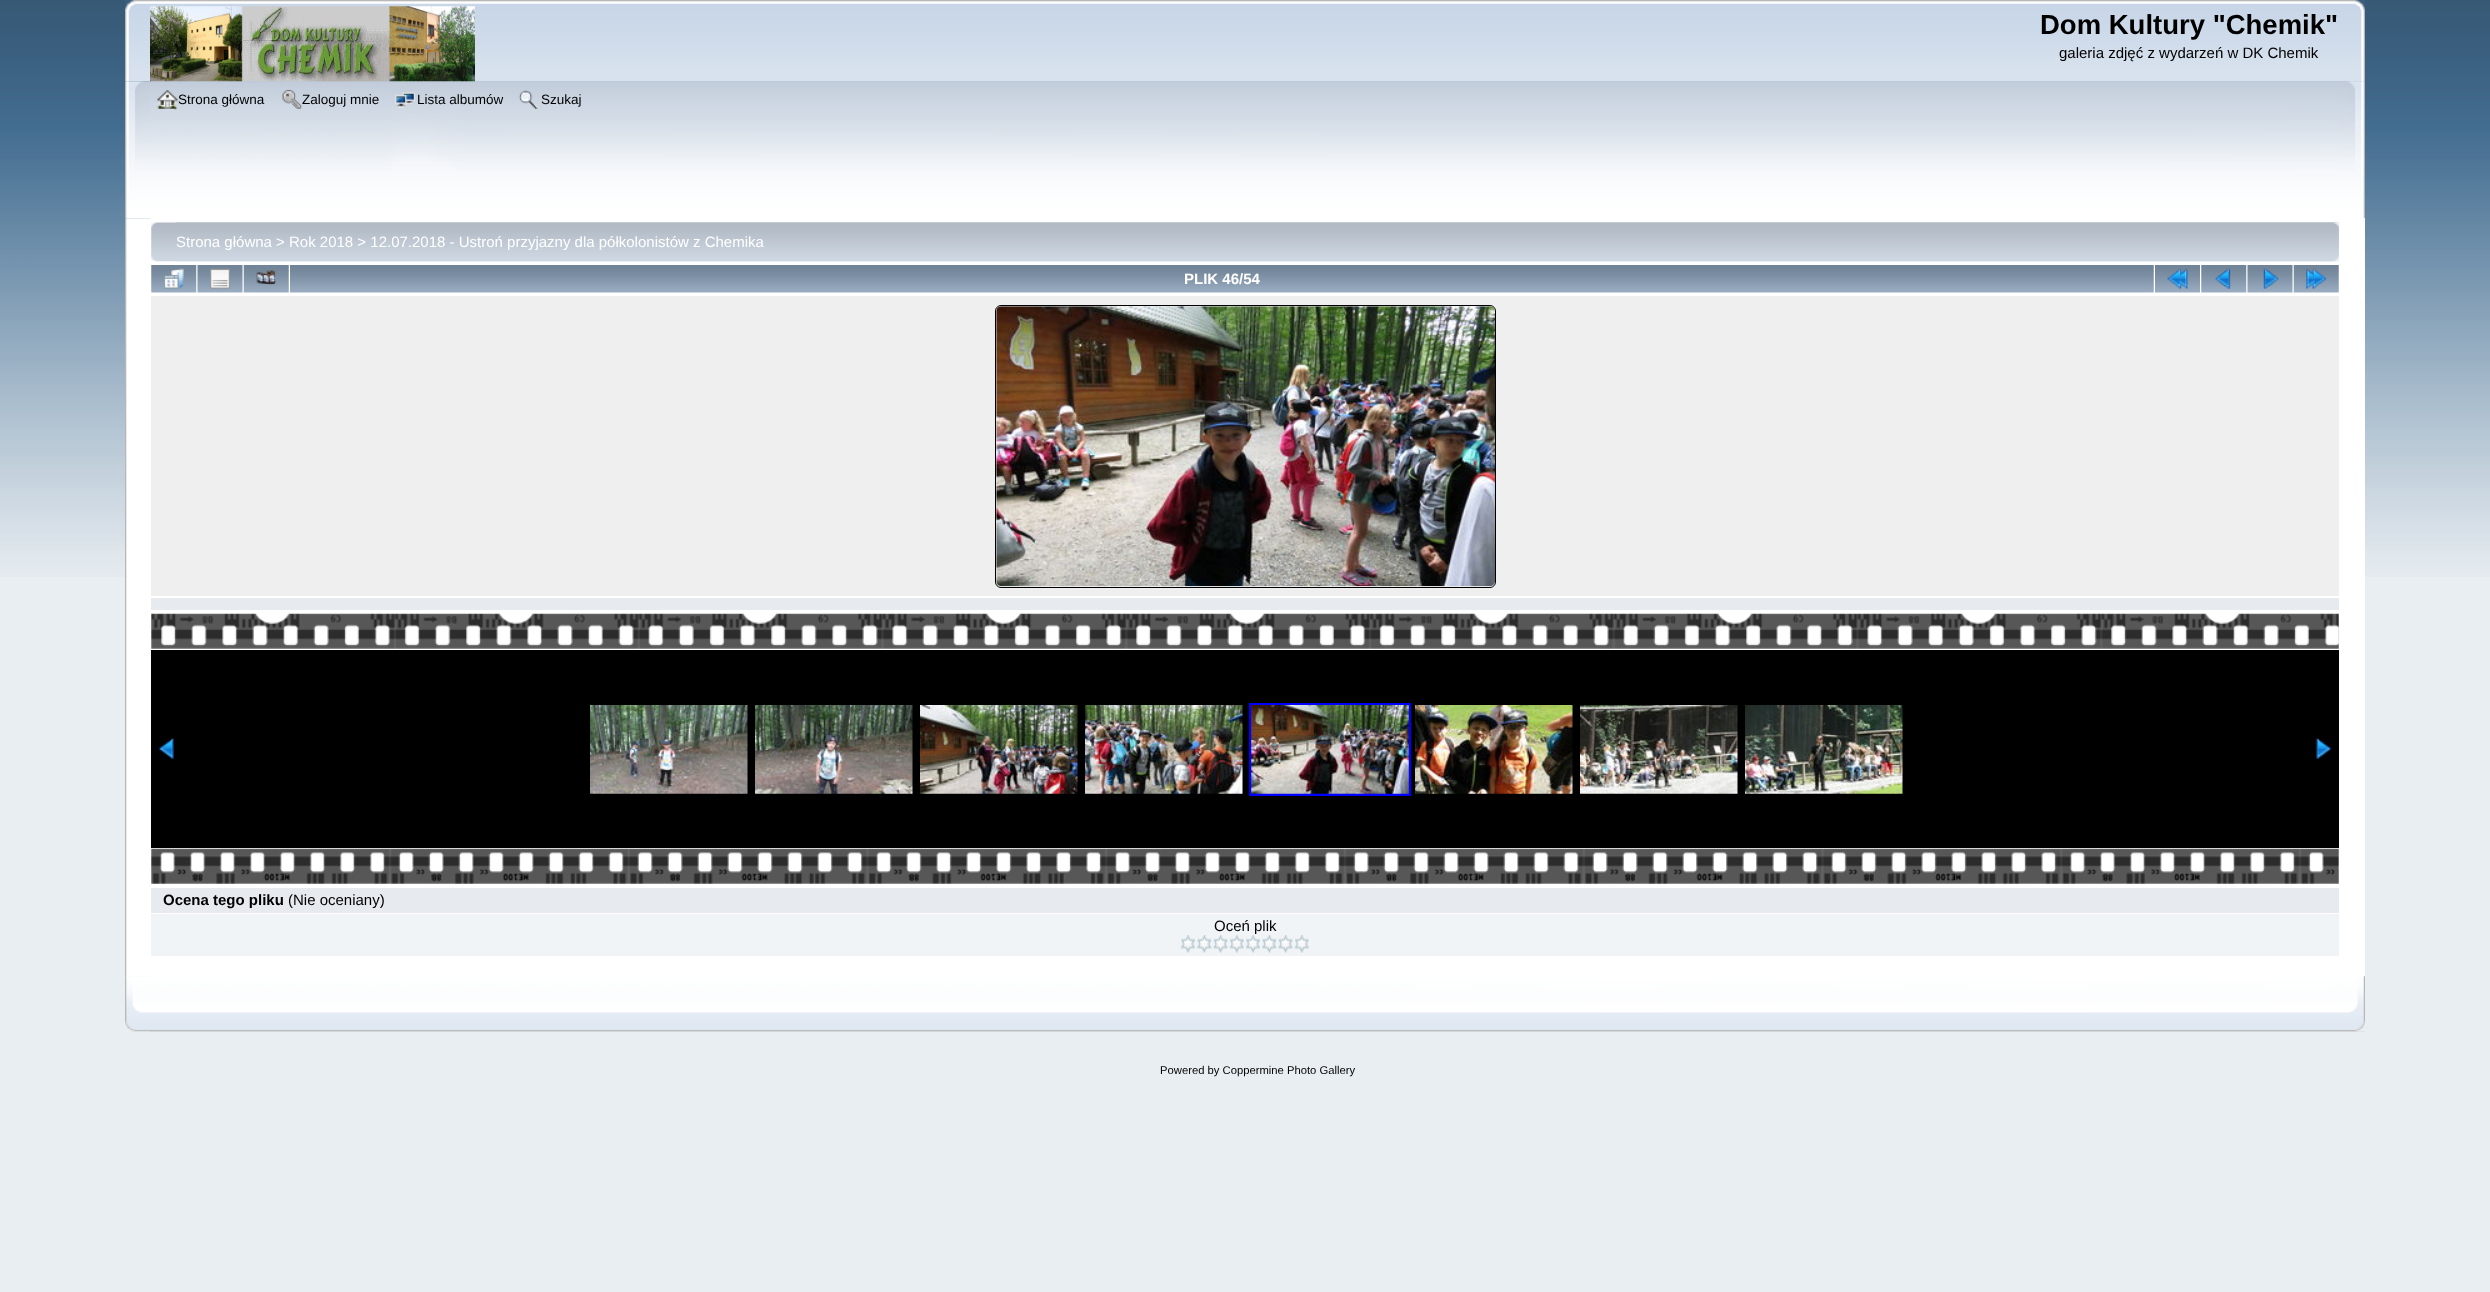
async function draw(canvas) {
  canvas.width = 2490
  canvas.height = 1292
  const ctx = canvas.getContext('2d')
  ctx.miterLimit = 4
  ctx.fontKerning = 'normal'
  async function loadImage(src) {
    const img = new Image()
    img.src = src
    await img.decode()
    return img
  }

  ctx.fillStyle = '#e9eef2'
  ctx.fillRect(0, 0, 2490, 1292)
  ctx.drawImage(await loadImage('image0.png'), 0, 0, 2490, 577)
  ctx.drawImage(await loadImage('image1.png'), 125, 0, 2240, 82)
  ctx.drawImage(await loadImage('image2.png'), 150, 0, 2215, 82)
  ctx.drawImage(await loadImage('image4.png'), 125, 81, 2240, 138)
  ctx.drawImage(await loadImage('image5.png'), 150, 81, 2215, 137)
  ctx.drawImage(await loadImage('image3.png'), 150, 6, 325, 76)
  ctx.font = 'bold 27.5px Liberation Sans'
  ctx.fillStyle = '#000'
  ctx.fillText('Dom Kultury "Chemik"', 2040, 34)
  ctx.font = '15px Liberation Sans'
  ctx.fillText('galeria zdjęć z wydarzeń w DK Chemik', 2059, 58)
  ctx.drawImage(await loadImage('image6.png'), 157, 90, 21, 20)
  ctx.font = '13.5px Liberation Sans'
  ctx.fillText('Strona główna', 178, 104)
  ctx.drawImage(await loadImage('image7.png'), 282, 90, 20, 19)
  ctx.fillText('Zaloguj mnie', 302, 104)
  ctx.drawImage(await loadImage('image8.png'), 395, 92, 20, 16)
  ctx.fillText('Lista albumów', 417, 104)
  ctx.drawImage(await loadImage('image9.png'), 518, 90, 20, 19)
  ctx.fillText('Szukaj', 541, 104)
  ctx.drawImage(await loadImage('image10.png'), 125, 218, 25, 759)
  ctx.fillStyle = '#fff'
  ctx.fillRect(150, 218, 2215, 759)
  ctx.drawImage(await loadImage('image11.png'), 151, 222, 2188, 40)
  ctx.drawImage(await loadImage('image12.png'), 176, 222, 2163, 40)
  ctx.font = '15px Liberation Sans'
  ctx.fillText('Strona główna > Rok 2018 > 12.07.2018 - Ustroń przyjazny dla półkolonistów z Chemika', 176, 247)
  ctx.drawImage(await loadImage('image13.png'), 151, 265, 46, 28)
  ctx.drawImage(await loadImage('image14.png'), 164, 268, 20, 21)
  ctx.drawImage(await loadImage('image15.png'), 197, 265, 46, 28)
  ctx.drawImage(await loadImage('image16.png'), 210, 268, 20, 21)
  ctx.drawImage(await loadImage('image17.png'), 243, 265, 46, 28)
  ctx.drawImage(await loadImage('image18.png'), 256, 270, 21, 15)
  ctx.drawImage(await loadImage('image19.png'), 290, 265, 1864, 28)
  ctx.font = 'bold 15px Liberation Sans'
  ctx.fillText('PLIK 46/54', 1184, 284)
  ctx.drawImage(await loadImage('image20.png'), 2155, 265, 45, 28)
  ctx.drawImage(await loadImage('image21.png'), 2167, 268, 21, 21)
  ctx.drawImage(await loadImage('image13.png'), 2201, 265, 46, 28)
  ctx.drawImage(await loadImage('image22.png'), 2215, 268, 16, 21)
  ctx.drawImage(await loadImage('image15.png'), 2247, 265, 46, 28)
  ctx.drawImage(await loadImage('image23.png'), 2263, 268, 16, 21)
  ctx.drawImage(await loadImage('image17.png'), 2293, 265, 46, 28)
  ctx.drawImage(await loadImage('image24.png'), 2306, 268, 21, 21)
  ctx.fillStyle = '#efefef'
  ctx.fillRect(151, 296, 2188, 300)
  ctx.beginPath()
  ctx.roundRect(995.5, 305.5, 500, 282, 5.5)
  ctx.strokeStyle = '#000'
  ctx.stroke()
  ctx.drawImage(await loadImage('image25.png'), 996, 306, 499, 281)
  ctx.fillStyle = '#e7eaef'
  ctx.fillRect(151, 598, 2188, 12)
  ctx.drawImage(await loadImage('image26.png'), 151, 613, 2188, 36)
  ctx.fillStyle = '#000'
  ctx.fillRect(151, 650, 2188, 198)
  ctx.drawImage(await loadImage('image27.png'), 158, 738, 16, 21)
  ctx.drawImage(await loadImage('image28.png'), 590, 705, 158, 89)
  ctx.drawImage(await loadImage('image29.png'), 755, 705, 158, 89)
  ctx.drawImage(await loadImage('image30.png'), 920, 705, 158, 89)
  ctx.drawImage(await loadImage('image31.png'), 1085, 705, 158, 89)
  ctx.strokeStyle = '#00f'
  ctx.lineWidth = 3
  ctx.strokeRect(1250.5, 704.5, 159, 90)
  ctx.drawImage(await loadImage('image32.png'), 1251, 705, 158, 89)
  ctx.drawImage(await loadImage('image33.png'), 1415, 705, 158, 89)
  ctx.drawImage(await loadImage('image34.png'), 1580, 705, 158, 89)
  ctx.drawImage(await loadImage('image35.png'), 1745, 705, 158, 89)
  ctx.drawImage(await loadImage('image36.png'), 2316, 738, 16, 21)
  ctx.drawImage(await loadImage('image37.png'), 151, 848, 2188, 36)
  ctx.fillStyle = '#e7eaef'
  ctx.fillRect(151, 888, 2188, 25)
  ctx.fillStyle = '#000'
  ctx.fillText('Ocena tego pliku', 163, 905)
  ctx.font = '15px Liberation Sans'
  ctx.fillText('(Nie oceniany)', 288, 905)
  ctx.fillStyle = '#f0f4f7'
  ctx.fillRect(151, 914, 2188, 42)
  ctx.fillStyle = '#000'
  ctx.fillText('Oceń plik', 1214, 931)
  ctx.drawImage(await loadImage('image38.png'), 1180, 935, 16, 18)
  ctx.drawImage(await loadImage('image39.png'), 1196, 935, 16, 18)
  ctx.drawImage(await loadImage('image40.png'), 1212, 935, 17, 18)
  ctx.drawImage(await loadImage('image41.png'), 1229, 935, 16, 18)
  ctx.drawImage(await loadImage('image38.png'), 1245, 935, 16, 18)
  ctx.drawImage(await loadImage('image39.png'), 1261, 935, 16, 18)
  ctx.drawImage(await loadImage('image40.png'), 1277, 935, 17, 18)
  ctx.drawImage(await loadImage('image41.png'), 1294, 935, 16, 18)
  ctx.drawImage(await loadImage('image42.png'), 125, 976, 2240, 56)
  ctx.drawImage(await loadImage('image43.png'), 150, 976, 2215, 56)
  ctx.font = '11.25px Liberation Sans'
  ctx.fillText('Powered by Coppermine Photo Gallery', 1160, 1074)
}

draw(document.querySelector('canvas'))
